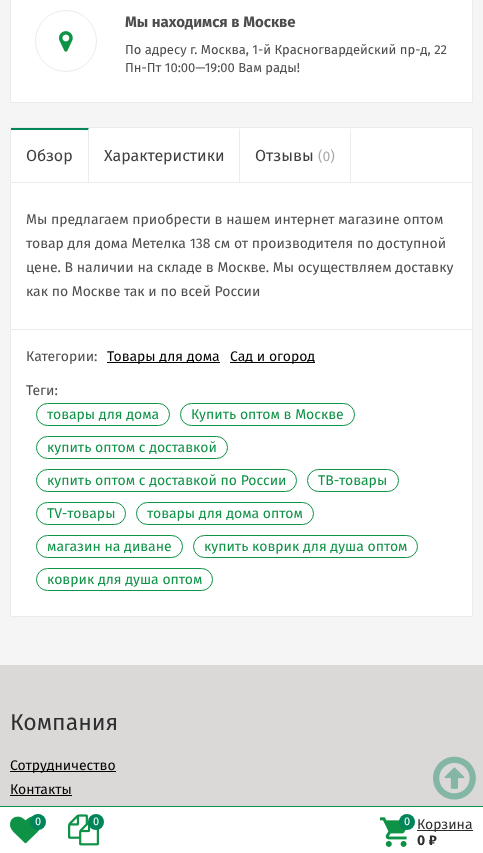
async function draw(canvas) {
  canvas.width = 483
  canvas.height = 853
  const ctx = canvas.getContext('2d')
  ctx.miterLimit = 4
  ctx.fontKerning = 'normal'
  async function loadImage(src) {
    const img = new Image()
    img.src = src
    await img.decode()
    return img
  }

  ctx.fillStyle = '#f5f5f6'
  ctx.fillRect(0, 0, 483, 853)
  ctx.fillStyle = '#fff'
  ctx.beginPath()
  ctx.rect(10.5, -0.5, 462, 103)
  ctx.fill()
  ctx.strokeStyle = '#ebebeb'
  ctx.stroke()
  ctx.beginPath()
  ctx.arc(66, 41, 30.5, 0, 2 * Math.PI)
  ctx.stroke()
  ctx.drawImage(await loadImage('image0.png'), 59, 31, 14, 21)
  ctx.font = 'bold 15px Fira Sans'
  ctx.fillStyle = '#4d4d4d'
  ctx.fillText('Мы находимся в Москве', 125, 27)
  ctx.font = '13px Fira Sans'
  ctx.fillText('По адресу г. Москва, 1-й Красногвардейский пр-д, 22', 125, 54)
  ctx.fillText('Пн-Пт 10:00—19:00 Вам рады!', 125, 72)
  ctx.fillStyle = '#fff'
  ctx.beginPath()
  ctx.rect(10.5, 127.5, 462, 489)
  ctx.fill()
  ctx.stroke()
  ctx.fillStyle = '#ebebeb'
  ctx.fillRect(11, 182, 461, 1)
  ctx.fillStyle = '#008459'
  ctx.beginPath()
  ctx.moveTo(11, 128)
  ctx.lineTo(89, 128)
  ctx.lineTo(88, 130)
  ctx.lineTo(11, 130)
  ctx.closePath()
  ctx.fill()
  ctx.fillStyle = '#ebebeb'
  ctx.beginPath()
  ctx.moveTo(89, 128)
  ctx.lineTo(89, 182)
  ctx.lineTo(88, 182)
  ctx.lineTo(88, 130)
  ctx.closePath()
  ctx.fill()
  ctx.font = '16px Fira Sans'
  ctx.fillStyle = '#3f3f3f'
  ctx.fillText('Обзор', 26, 161)
  ctx.fillStyle = '#ebebeb'
  ctx.beginPath()
  ctx.moveTo(240, 128)
  ctx.lineTo(240, 182)
  ctx.lineTo(239, 182)
  ctx.lineTo(239, 130)
  ctx.closePath()
  ctx.fill()
  ctx.fillStyle = '#3f3f3f'
  ctx.fillText('Характеристики', 104, 161)
  ctx.fillStyle = '#ebebeb'
  ctx.beginPath()
  ctx.moveTo(351, 128)
  ctx.lineTo(351, 182)
  ctx.lineTo(350, 182)
  ctx.lineTo(350, 130)
  ctx.closePath()
  ctx.fill()
  ctx.fillStyle = '#3f3f3f'
  ctx.fillText('Отзывы', 255, 161)
  ctx.font = '14px Fira Sans'
  ctx.fillStyle = '#aaa'
  ctx.fillText('(0)', 318, 161)
  ctx.fillStyle = '#4d4d4d'
  ctx.fillText('Мы предлагаем приобрести в нашем интернет магазине оптом', 26, 224)
  ctx.fillText('товар для дома Метелка 138 см от производителя по доступной', 26, 248)
  ctx.fillText('цене. В наличии на складе в Москве. Мы осуществляем доставку', 26, 272)
  ctx.fillText('как по Москве так и по всей России', 26, 296)
  ctx.fillStyle = '#ebebeb'
  ctx.fillRect(11, 329, 461, 1)
  ctx.fillStyle = '#4d4d4d'
  ctx.fillText('Категории:', 26, 361)
  ctx.fillStyle = '#000'
  ctx.fillRect(107, 362, 113, 1)
  ctx.fillText('Товары для дома', 107, 361)
  ctx.fillRect(230, 362, 85, 1)
  ctx.fillText('Сад и огород', 230, 361)
  ctx.fillStyle = '#4d4d4d'
  ctx.fillText('Теги:', 26, 395)
  ctx.beginPath()
  ctx.roundRect(36.5, 403.5, 133, 22, 11)
  ctx.strokeStyle = '#0e9246'
  ctx.stroke()
  ctx.fillStyle = '#0e9246'
  ctx.fillText('товары для дома', 47, 419)
  ctx.beginPath()
  ctx.roundRect(180.5, 403.5, 174, 22, 11)
  ctx.stroke()
  ctx.fillText('Купить оптом в Москве', 191, 419)
  ctx.beginPath()
  ctx.roundRect(36.5, 436.5, 191, 22, 11)
  ctx.stroke()
  ctx.fillText('купить оптом с доставкой', 47, 452)
  ctx.beginPath()
  ctx.roundRect(36.5, 469.5, 260, 22, 11)
  ctx.stroke()
  ctx.fillText('купить оптом с доставкой по России', 47, 485)
  ctx.beginPath()
  ctx.roundRect(307.5, 469.5, 91, 22, 11)
  ctx.stroke()
  ctx.fillText('ТВ-товары', 318, 485)
  ctx.beginPath()
  ctx.roundRect(36.5, 502.5, 89, 22, 11)
  ctx.stroke()
  ctx.fillText('TV-товары', 47, 518)
  ctx.beginPath()
  ctx.roundRect(136.5, 502.5, 177, 22, 11)
  ctx.stroke()
  ctx.fillText('товары для дома оптом', 147, 518)
  ctx.beginPath()
  ctx.roundRect(36.5, 535.5, 146, 22, 11)
  ctx.stroke()
  ctx.fillText('магазин на диване', 47, 551)
  ctx.beginPath()
  ctx.roundRect(193.5, 535.5, 224, 22, 11)
  ctx.stroke()
  ctx.fillText('купить коврик для душа оптом', 204, 551)
  ctx.beginPath()
  ctx.roundRect(36.5, 568.5, 176, 22, 11)
  ctx.stroke()
  ctx.fillText('коврик для душа оптом', 47, 584)
  ctx.fillStyle = '#dbd8d8'
  ctx.fillRect(0, 665, 483, 141)
  ctx.font = '23px Fira Sans'
  ctx.fillStyle = '#2e2e2e'
  ctx.fillText('Компания', 10, 730)
  ctx.fillStyle = '#000'
  ctx.fillRect(10, 771, 106, 1)
  ctx.font = '14px Fira Sans'
  ctx.fillText('Сотрудничество', 10, 770)
  ctx.fillText('Контакты', 10, 794)
  ctx.fillRect(10, 795, 62, 1)
  ctx.drawImage(await loadImage('image1.png'), 433, 756, 43, 44)
  ctx.fillStyle = '#fff'
  ctx.fillRect(0, 807, 483, 46)
  ctx.fillStyle = '#0e9246'
  ctx.fillRect(0, 806, 483, 1)
  ctx.drawImage(await loadImage('image2.png'), 10, 816, 30, 28)
  ctx.fillStyle = '#008459'
  ctx.beginPath()
  ctx.arc(38, 822, 8, 0, 2 * Math.PI)
  ctx.fill()
  ctx.font = '11px Fira Sans'
  ctx.fillStyle = '#fff'
  ctx.fillText('0', 35, 825)
  ctx.drawImage(await loadImage('image3.png'), 68, 814, 31, 32)
  ctx.fillStyle = '#008459'
  ctx.beginPath()
  ctx.arc(96, 822, 8, 0, 2 * Math.PI)
  ctx.fill()
  ctx.fillStyle = '#fff'
  ctx.fillText('0', 93, 825)
  ctx.drawImage(await loadImage('image4.png'), 380, 817, 27, 30)
  ctx.fillStyle = '#008459'
  ctx.beginPath()
  ctx.arc(407, 822, 8, 0, 2 * Math.PI)
  ctx.fill()
  ctx.fillStyle = '#fff'
  ctx.fillText('0', 404, 825)
  ctx.fillStyle = '#2b2b2b'
  ctx.fillRect(417, 830, 56, 1)
  ctx.font = '14px Fira Sans'
  ctx.fillStyle = '#2e2e2e'
  ctx.fillText('Корзина', 417, 829)
  ctx.font = 'bold 14px Fira Sans'
  ctx.fillText('0 ₽', 417, 845)
}

draw(document.querySelector('canvas'))
